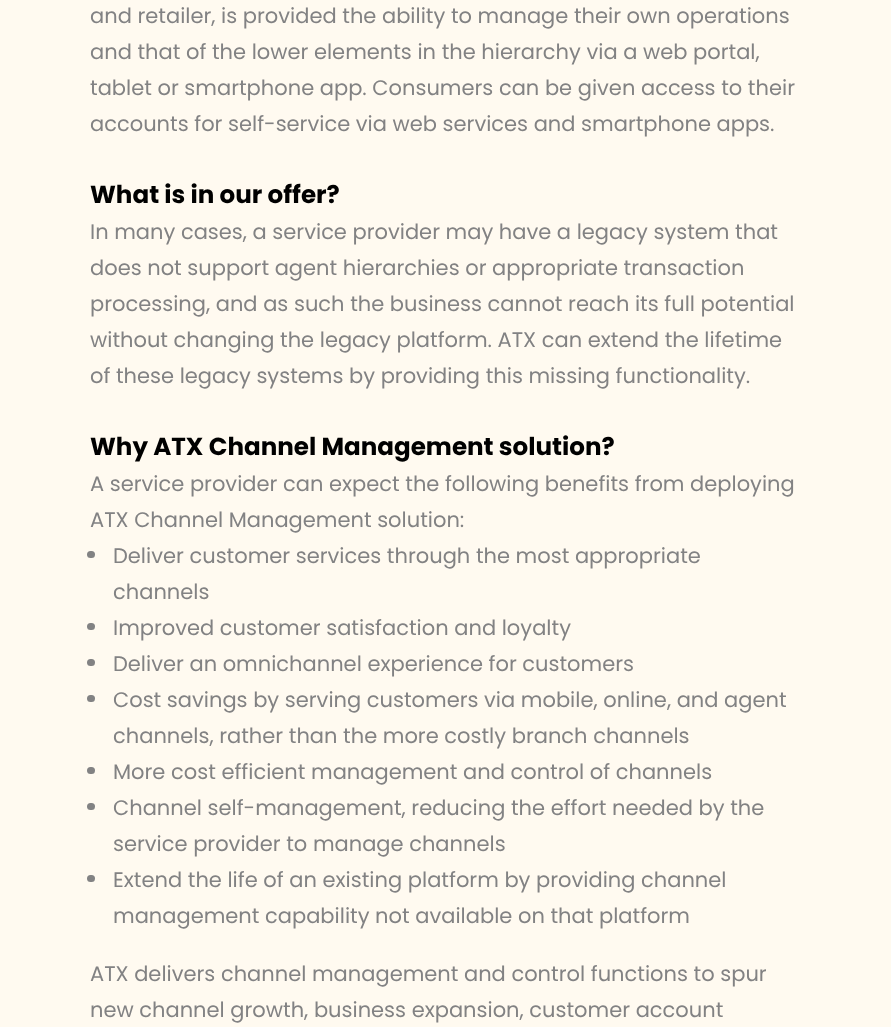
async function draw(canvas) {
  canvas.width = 891
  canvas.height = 1027
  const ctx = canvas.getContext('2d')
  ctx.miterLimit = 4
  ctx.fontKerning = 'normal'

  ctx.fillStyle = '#fffaf0'
  ctx.fillRect(0, 0, 891, 1027)
  ctx.font = '21px Poppins'
  ctx.fillStyle = '#828283'
  ctx.fillText('and retailer, is provided the ability to manage their own operations', 90, 23)
  ctx.fillText('and that of the lower elements in the hierarchy via a web portal,', 90, 59)
  ctx.fillText('tablet or smartphone app. Consumers can be given access to their', 90, 95)
  ctx.fillText('accounts for self-service via web services and smartphone apps.', 90, 131)
  ctx.font = 'bold 24.6px Poppins'
  ctx.fillStyle = '#000'
  ctx.fillText('What is in our offer?', 90, 203)
  ctx.font = '21px Poppins'
  ctx.fillStyle = '#828283'
  ctx.fillText('In many cases, a service provider may have a legacy system that', 90, 239)
  ctx.fillText('does not support agent hierarchies or appropriate transaction', 90, 275)
  ctx.fillText('processing, and as such the business cannot reach its full potential', 90, 311)
  ctx.fillText('without changing the legacy platform. ATX can extend the lifetime', 90, 347)
  ctx.fillText('of these legacy systems by providing this missing functionality.', 90, 383)
  ctx.font = 'bold 24.6px Poppins'
  ctx.fillStyle = '#000'
  ctx.fillText('Why ATX Channel Management solution?', 90, 455)
  ctx.font = '21px Poppins'
  ctx.fillStyle = '#828283'
  ctx.fillText('A service provider can expect the following benefits from deploying', 90, 491)
  ctx.fillText('ATX Channel Management solution:', 90, 527)
  ctx.beginPath()
  ctx.roundRect(87, 551, 8, 7, 3.5)
  ctx.fill()
  ctx.fillText('Deliver customer services through the most appropriate', 113, 563)
  ctx.fillText('channels', 113, 599)
  ctx.beginPath()
  ctx.roundRect(87, 623, 8, 7, 3.5)
  ctx.fill()
  ctx.fillText('Improved customer satisfaction and loyalty', 113, 635)
  ctx.beginPath()
  ctx.roundRect(87, 659, 8, 7, 3.5)
  ctx.fill()
  ctx.fillText('Deliver an omnichannel experience for customers', 113, 671)
  ctx.beginPath()
  ctx.roundRect(87, 695, 8, 7, 3.5)
  ctx.fill()
  ctx.fillText('Cost savings by serving customers via mobile, online, and agent', 113, 707)
  ctx.fillText('channels, rather than the more costly branch channels', 113, 743)
  ctx.beginPath()
  ctx.roundRect(87, 767, 8, 7, 3.5)
  ctx.fill()
  ctx.fillText('More cost efficient management and control of channels', 113, 779)
  ctx.beginPath()
  ctx.roundRect(87, 803, 8, 7, 3.5)
  ctx.fill()
  ctx.fillText('Channel self-management, reducing the effort needed by the', 113, 815)
  ctx.fillText('service provider to manage channels', 113, 851)
  ctx.beginPath()
  ctx.roundRect(87, 875, 8, 7, 3.5)
  ctx.fill()
  ctx.fillText('Extend the life of an existing platform by providing channel', 113, 887)
  ctx.fillText('management capability not available on that platform', 113, 923)
  ctx.fillText('ATX delivers channel management and control functions to spur', 90, 981)
  ctx.fillText('new channel growth, business expansion, customer account', 90, 1017)
}

draw(document.querySelector('canvas'))
